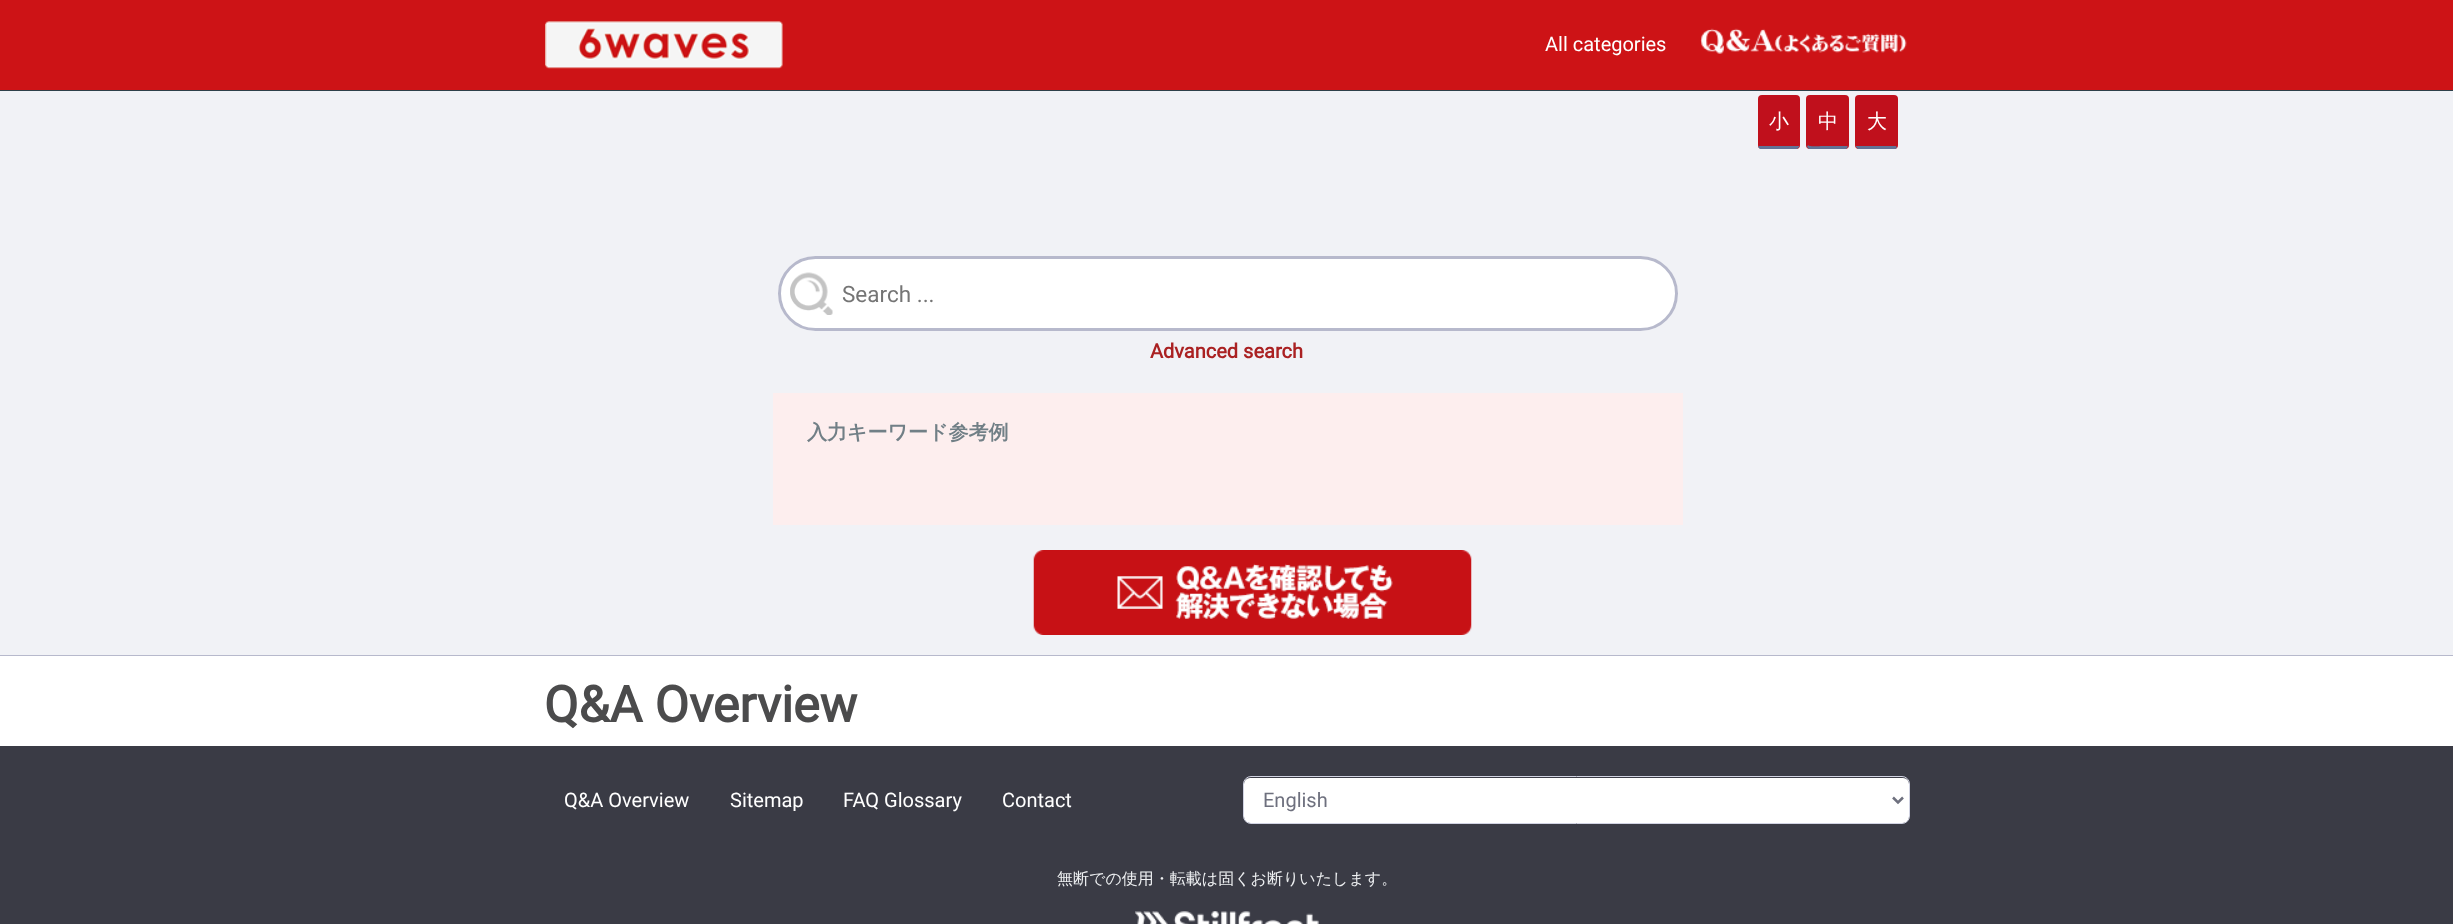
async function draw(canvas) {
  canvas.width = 2453
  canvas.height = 924
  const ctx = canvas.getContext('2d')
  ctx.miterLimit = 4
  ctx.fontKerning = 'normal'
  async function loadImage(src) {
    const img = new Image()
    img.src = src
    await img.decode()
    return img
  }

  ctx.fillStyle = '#fff'
  ctx.fillRect(0, 0, 2453, 924)
  ctx.fillStyle = '#cd1316'
  ctx.fillRect(0, 0, 2453, 90)
  ctx.drawImage(await loadImage('image0.png'), 545, 21, 238, 48)
  ctx.font = '20px Roboto'
  ctx.fillStyle = '#fff'
  ctx.fillText('All categories', 1545, 51)
  ctx.drawImage(await loadImage('image1.png'), 1700, 28, 207, 26)
  ctx.fillStyle = '#f1f2f6'
  ctx.fillRect(0, 91, 2453, 564)
  ctx.fillStyle = '#2f414a'
  ctx.fillRect(0, 90, 2453, 1)
  ctx.fillStyle = '#b7b9cc'
  ctx.fillRect(0, 655, 2453, 1)
  ctx.fillStyle = '#c0101c'
  ctx.beginPath()
  ctx.roundRect(1758, 95, 42, 54, 4)
  ctx.fill()
  ctx.fillStyle = '#627295'
  ctx.beginPath()
  ctx.moveTo(1760, 149)
  ctx.lineTo(1758, 147)
  ctx.lineTo(1759, 146)
  ctx.lineTo(1761, 146)
  ctx.lineTo(1799, 146)
  ctx.lineTo(1799, 147)
  ctx.lineTo(1797, 149)
  ctx.closePath()
  ctx.fill()
  ctx.font = '500 20px WenQuanYi Zen Hei'
  ctx.fillStyle = '#fff'
  ctx.fillText('小', 1769, 128)
  ctx.fillStyle = '#c0101c'
  ctx.beginPath()
  ctx.roundRect(1806, 95, 43, 54, 4)
  ctx.fill()
  ctx.fillStyle = '#627295'
  ctx.beginPath()
  ctx.moveTo(1809, 149)
  ctx.lineTo(1807, 147)
  ctx.lineTo(1808, 145)
  ctx.bezierCurveTo(1808, 147, 1820, 146, 1822, 146)
  ctx.lineTo(1847, 146)
  ctx.lineTo(1848, 147)
  ctx.lineTo(1846, 149)
  ctx.closePath()
  ctx.fill()
  ctx.fillStyle = '#fff'
  ctx.fillText('中', 1818, 128)
  ctx.fillStyle = '#c0101c'
  ctx.beginPath()
  ctx.roundRect(1855, 95, 43, 54, 4)
  ctx.fill()
  ctx.fillStyle = '#627295'
  ctx.beginPath()
  ctx.moveTo(1858, 149)
  ctx.lineTo(1856, 147)
  ctx.lineTo(1856, 146)
  ctx.lineTo(1894, 146)
  ctx.lineTo(1896, 146)
  ctx.lineTo(1897, 148)
  ctx.lineTo(1895, 149)
  ctx.closePath()
  ctx.fill()
  ctx.fillStyle = '#fff'
  ctx.fillText('大', 1867, 128)
  ctx.beginPath()
  ctx.roundRect(778, 256, 900, 75, 37.5)
  ctx.fill()
  ctx.drawImage(await loadImage('image2.png'), 790, 272, 43, 43)
  ctx.beginPath()
  ctx.roundRect(779.5, 257.5, 897, 72, 36)
  ctx.strokeStyle = '#b7b9cc'
  ctx.lineWidth = 3
  ctx.stroke()
  ctx.font = '22.5px Roboto'
  ctx.fillStyle = '#757575'
  ctx.fillText('Search ...', 842, 302)
  ctx.font = 'bold 20px Roboto'
  ctx.fillStyle = '#aa2122'
  ctx.fillText('Advanced search', 1150, 358)
  ctx.fillStyle = '#fdeeee'
  ctx.fillRect(773, 393, 910, 132)
  ctx.font = 'bold 20px WenQuanYi Zen Hei'
  ctx.fillStyle = '#717f86'
  ctx.fillText('入力キーワード参考例', 807, 439)
  ctx.drawImage(await loadImage('image3.png'), 1033, 550, 439, 85)
  ctx.font = 'bold 50px Roboto'
  ctx.fillStyle = '#4b4b4c'
  ctx.fillText('Q&A Overview', 544, 722)
  ctx.fillStyle = '#3a3b45'
  ctx.fillRect(0, 746, 2453, 178)
  ctx.font = '20px Roboto'
  ctx.fillStyle = '#fff'
  ctx.fillText('Q&A Overview', 564, 807)
  ctx.fillText('Sitemap', 730, 807)
  ctx.fillText('FAQ Glossary', 843, 807)
  ctx.fillText('Contact', 1002, 807)
  ctx.beginPath()
  ctx.roundRect(1244, 778, 665, 45, 6)
  ctx.fill()
  ctx.beginPath()
  ctx.roundRect(1243.5, 776.5, 666, 47, 7.5)
  ctx.strokeStyle = '#d1d3e2'
  ctx.lineWidth = 1
  ctx.stroke()
  ctx.beginPath()
  ctx.moveTo(1893, 797.5)
  ctx.lineTo(1898, 802.5)
  ctx.lineTo(1903, 797.5)
  ctx.strokeStyle = '#6e707e'
  ctx.lineWidth = 2.5
  ctx.stroke()
  ctx.fillStyle = '#6e707e'
  ctx.fillText('English', 1263, 807)
  ctx.font = '500 16px WenQuanYi Zen Hei'
  ctx.fillStyle = '#eef0f2'
  ctx.fillText('無断での使用・転載は固くお断りいたします。', 1057, 884)
  ctx.drawImage(await loadImage('image4.png'), 1135, 911, 184, 13)
}

draw(document.querySelector('canvas'))
